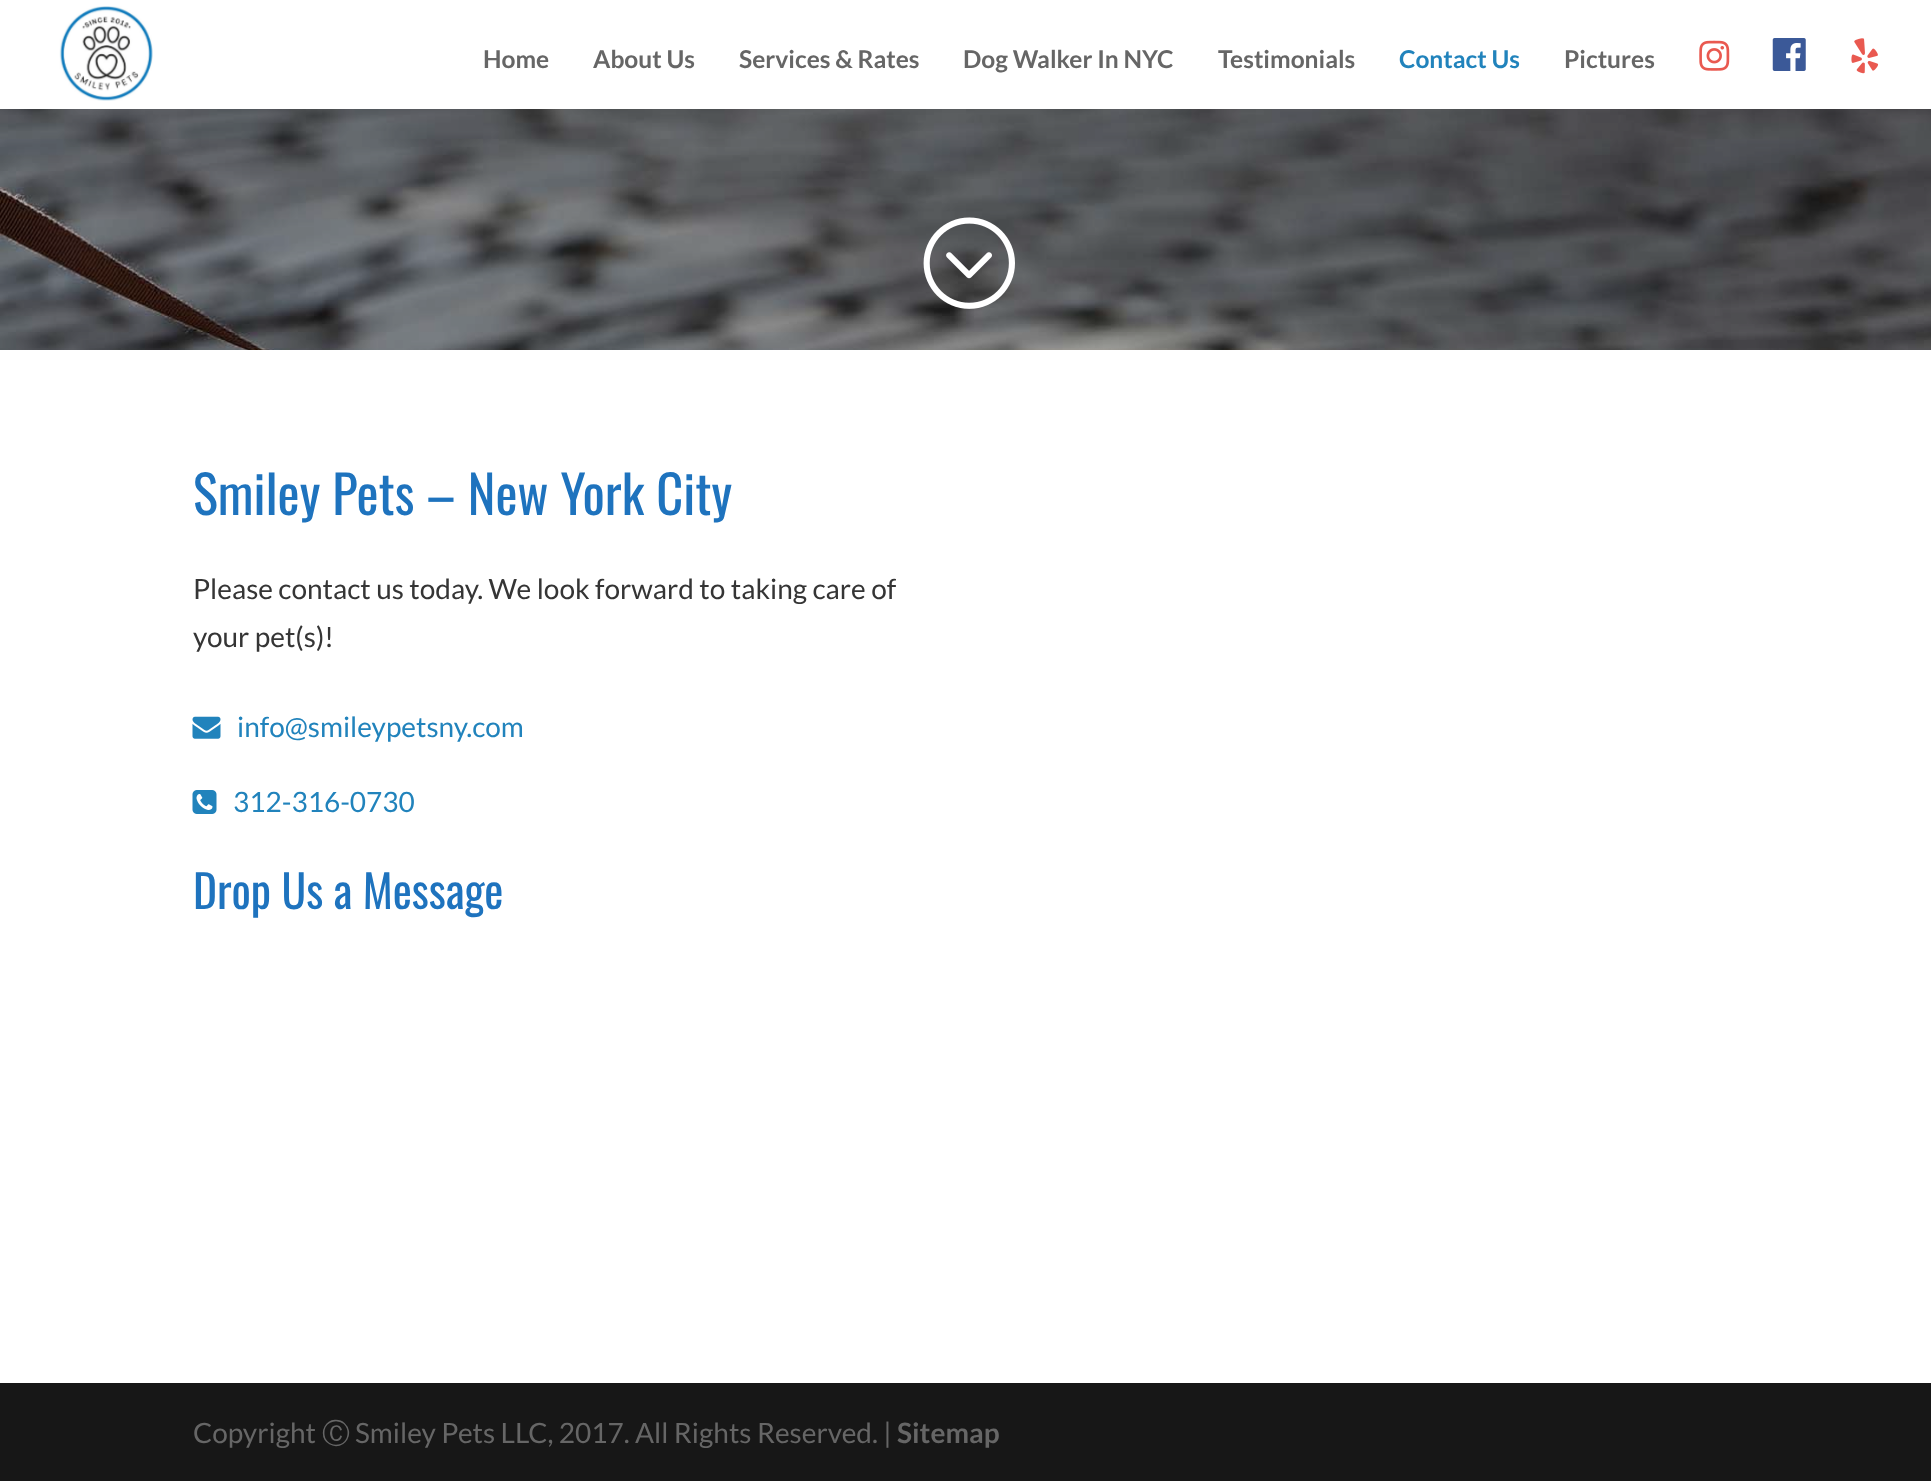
async function draw(canvas) {
  canvas.width = 1931
  canvas.height = 1481
  const ctx = canvas.getContext('2d')
  ctx.miterLimit = 4
  ctx.fontKerning = 'normal'
  async function loadImage(src) {
    const img = new Image()
    img.src = src
    await img.decode()
    return img
  }

  ctx.fillStyle = '#171717'
  ctx.fillRect(0, 0, 1931, 1481)
  ctx.fillStyle = '#fff'
  ctx.fillRect(0, 0, 1931, 109)
  ctx.drawImage(await loadImage('image0.png'), 59, 6, 94, 95)
  ctx.font = 'bold 24.5px Lato'
  ctx.fillStyle = '#666'
  ctx.fillText('Home', 483, 68)
  ctx.fillText('About Us', 593, 68)
  ctx.fillText('Services & Rates', 739, 68)
  ctx.fillText('Dog Walker In NYC', 963, 68)
  ctx.fillText('Testimonials', 1218, 68)
  ctx.fillStyle = '#2183bc'
  ctx.fillText('Contact Us', 1399, 68)
  ctx.fillStyle = '#666'
  ctx.fillText('Pictures', 1564, 68)
  ctx.drawImage(await loadImage('image1.png'), 1699, 40, 31, 31)
  ctx.drawImage(await loadImage('image2.png'), 1772, 38, 34, 33)
  ctx.drawImage(await loadImage('image3.png'), 1851, 38, 28, 36)
  ctx.drawImage(await loadImage('image4.png'), 0, 109, 1931, 241)
  ctx.drawImage(await loadImage('image5.png'), 923, 217, 92, 92)
  ctx.fillStyle = '#fff'
  ctx.fillRect(0, 350, 1931, 1033)
  ctx.font = '52.5px Oswald'
  ctx.fillStyle = '#1e73be'
  ctx.fillText('Smiley Pets – New York City', 193, 515)
  ctx.font = '28px Lato'
  ctx.fillStyle = '#353535'
  ctx.fillText('Please contact us today. We look forward to taking care of', 193, 599)
  ctx.fillText('your pet(s)!', 193, 647)
  ctx.drawImage(await loadImage('image6.png'), 192, 716, 29, 23)
  ctx.fillStyle = '#2183bc'
  ctx.fillText('info@smileypetsny.com', 237, 737)
  ctx.drawImage(await loadImage('image7.png'), 192, 790, 25, 24)
  ctx.fillText('312-316-0730', 233, 812)
  ctx.font = '45.5px Oswald'
  ctx.fillStyle = '#1e73be'
  ctx.fillText('Drop Us a Message', 193, 909)
  ctx.font = '28px Lato'
  ctx.fillStyle = '#666'
  ctx.fillText('Copyright', 193, 1443)
  ctx.font = '500 28px WenQuanYi Zen Hei'
  ctx.fillText('Ⓒ', 322, 1443)
  ctx.font = '28px Lato'
  ctx.fillText('Smiley Pets LLC, 2017. All Rights Reserved. |', 355, 1443)
  ctx.font = 'bold 28px Lato'
  ctx.fillText('Sitemap', 897, 1443)
}

draw(document.querySelector('canvas'))
